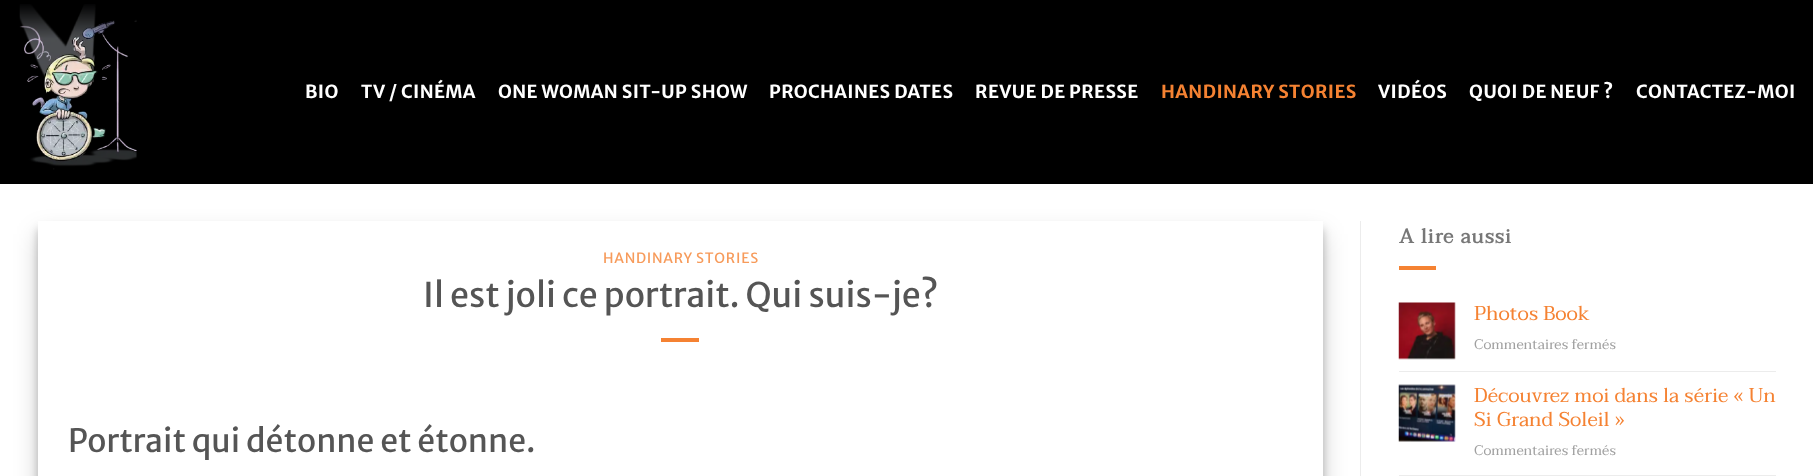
async function draw(canvas) {
  canvas.width = 1813
  canvas.height = 476
  const ctx = canvas.getContext('2d')
  ctx.miterLimit = 4
  ctx.fontKerning = 'normal'
  async function loadImage(src) {
    const img = new Image()
    img.src = src
    await img.decode()
    return img
  }

  ctx.fillStyle = '#fff'
  ctx.fillRect(0, 0, 1813, 476)
  ctx.fillStyle = '#000'
  ctx.fillRect(0, 0, 1813, 184)
  ctx.drawImage(await loadImage('image0.png'), 19, 4, 118, 166)
  ctx.letterSpacing = '0.4px'
  ctx.font = 'bold 18px Merriweather Sans'
  ctx.fillStyle = '#fff'
  ctx.fillText('BIO', 305, 98)
  ctx.fillText('TV / CINÉMA', 361, 98)
  ctx.fillText('ONE WOMAN SIT-UP SHOW', 498, 98)
  ctx.fillText('PROCHAINES DATES', 769, 98)
  ctx.fillText('REVUE DE PRESSE', 975, 98)
  ctx.fillStyle = '#f58232'
  ctx.fillText('HANDINARY STORIES', 1161, 98)
  ctx.fillStyle = '#fff'
  ctx.fillText('VIDÉOS', 1378, 98)
  ctx.fillText('QUOI DE NEUF ?', 1469, 98)
  ctx.fillText('CONTACTEZ-MOI', 1636, 98)
  ctx.fillStyle = '#00000038'
  ctx.filter = 'blur(4px)'
  ctx.beginPath()
  ctx.rect(38, 229, 1285, 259)
  ctx.fill()
  ctx.filter = 'none'
  ctx.fillStyle = '#00000030'
  ctx.filter = 'blur(12.5px)'
  ctx.beginPath()
  ctx.rect(38, 234, 1285, 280)
  ctx.fill()
  ctx.filter = 'none'
  ctx.fillStyle = '#fff'
  ctx.fillRect(38, 221, 1285, 255)
  ctx.letterSpacing = '0.75px'
  ctx.font = '14px Merriweather Sans'
  ctx.fillStyle = '#f79b5b'
  ctx.fillText('HANDINARY STORIES', 603, 263)
  ctx.letterSpacing = '0px'
  ctx.font = '34px Merriweather Sans'
  ctx.fillStyle = '#555'
  ctx.fillText('Il est joli ce portrait. Qui suis-je?', 423, 307)
  ctx.fillStyle = '#f58232'
  ctx.fillRect(661, 338, 38, 4)
  ctx.font = '32px Merriweather Sans'
  ctx.fillStyle = '#555'
  ctx.fillText('Portrait qui détonne et étonne.', 68, 452)
  ctx.fillStyle = '#ececec'
  ctx.fillRect(1360, 221, 1, 255)
  ctx.letterSpacing = '1px'
  ctx.font = 'bold 20px Taviraj'
  ctx.fillStyle = '#777'
  ctx.fillText('A lire aussi', 1399, 243)
  ctx.fillStyle = '#f58232'
  ctx.fillRect(1399, 266, 37, 4)
  ctx.drawImage(await loadImage('image1.png'), 1398, 302, 58, 58)
  ctx.letterSpacing = '0px'
  ctx.font = '20px Taviraj'
  ctx.fillText('Photos Book', 1474, 320)
  ctx.font = '14px Taviraj'
  ctx.fillStyle = '#a0a0a0'
  ctx.fillText('Commentaires fermés', 1474, 349)
  ctx.fillStyle = '#ececec'
  ctx.fillRect(1399, 371, 377, 1)
  ctx.drawImage(await loadImage('image2.png'), 1398, 384, 58, 58)
  ctx.font = '20px Taviraj'
  ctx.fillStyle = '#f58232'
  ctx.fillText('Découvrez moi dans la série « Un', 1474, 402)
  ctx.fillText('Si Grand Soleil »', 1474, 426)
  ctx.font = '14px Taviraj'
  ctx.fillStyle = '#a0a0a0'
  ctx.fillText('Commentaires fermés', 1474, 455)
  ctx.fillStyle = '#ececec'
  ctx.fillRect(1399, 475, 377, 1)
}

draw(document.querySelector('canvas'))
